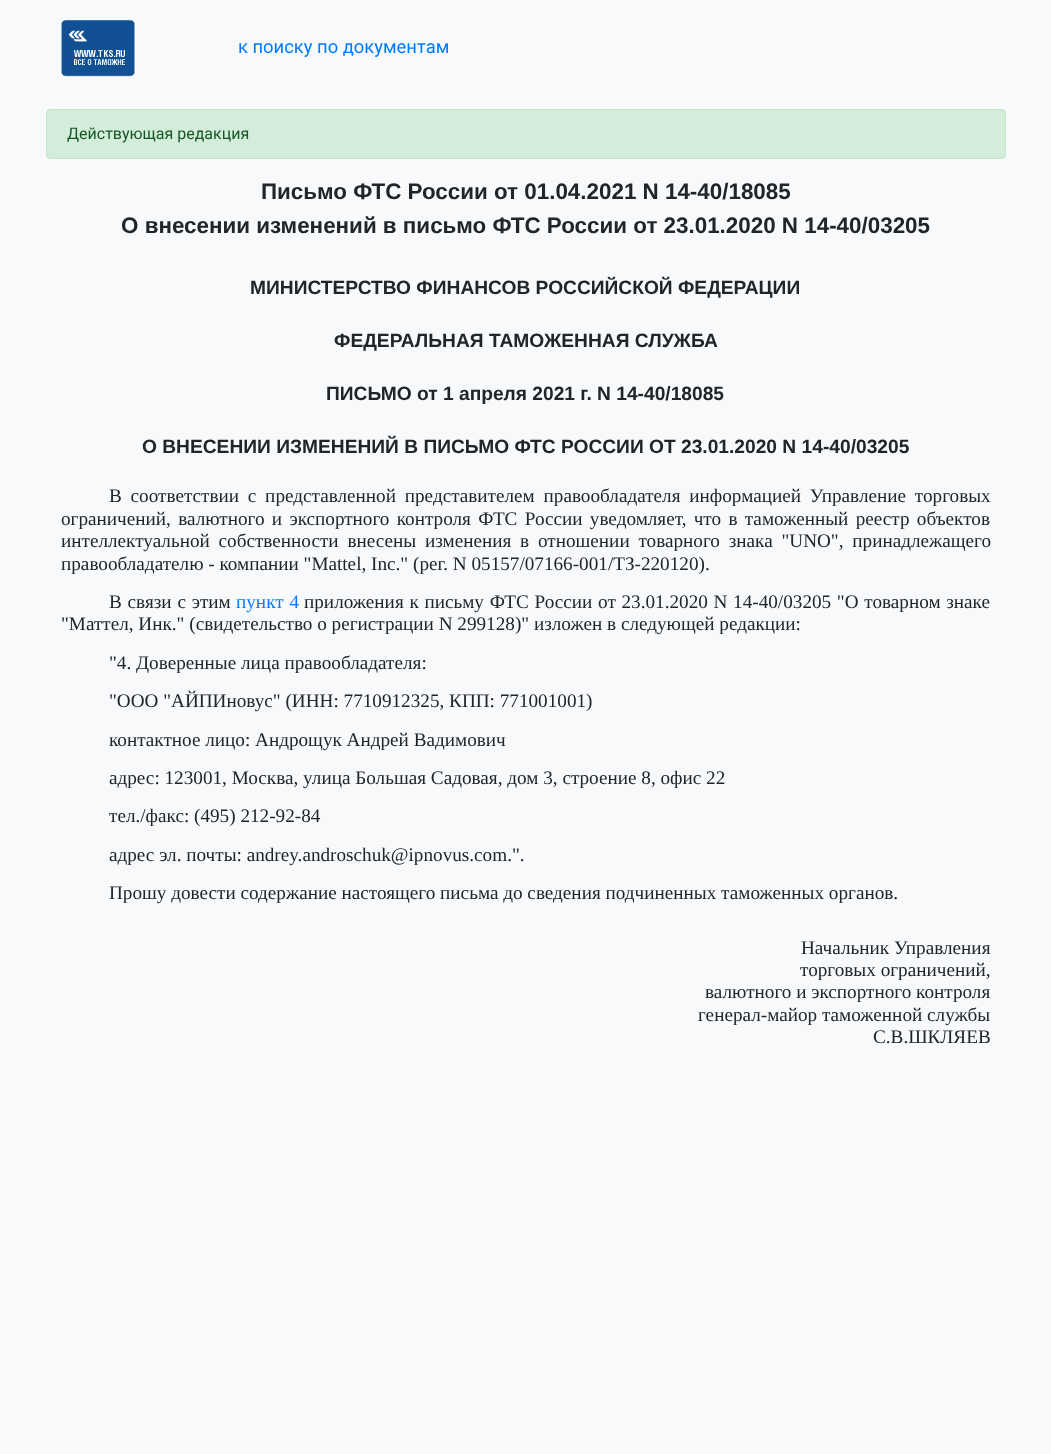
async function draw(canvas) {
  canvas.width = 1051
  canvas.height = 1454
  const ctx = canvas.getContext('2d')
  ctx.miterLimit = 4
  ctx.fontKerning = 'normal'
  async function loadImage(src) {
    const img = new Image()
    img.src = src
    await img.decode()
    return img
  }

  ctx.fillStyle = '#f8f9fa'
  ctx.fillRect(0, 0, 1051, 1454)
  ctx.drawImage(await loadImage('image0.png'), 61, 20, 74, 57)
  ctx.font = '18.4px Roboto'
  ctx.fillStyle = '#007bff'
  ctx.fillText('к поиску по документам', 238, 53)
  ctx.fillStyle = '#d4edda'
  ctx.beginPath()
  ctx.roundRect(46.5, 109.5, 959, 49, 3.5)
  ctx.fill()
  ctx.strokeStyle = '#c3e6cb'
  ctx.stroke()
  ctx.font = '16px Roboto'
  ctx.fillStyle = '#155724'
  ctx.fillText('Действующая редакция', 67, 139)
  ctx.font = 'bold 22.4px Liberation Sans'
  ctx.fillStyle = '#212529'
  ctx.fillText('Письмо ФТС России от 01.04.2021 N 14-40/18085', 261, 199)
  ctx.fillText('О внесении изменений в письмо ФТС России от 23.01.2020 N 14-40/03205', 121, 233)
  ctx.font = 'bold 19.2px Liberation Sans'
  ctx.fillText('МИНИСТЕРСТВО ФИНАНСОВ РОССИЙСКОЙ ФЕДЕРАЦИИ', 250, 294)
  ctx.fillText('ФЕДЕРАЛЬНАЯ ТАМОЖЕННАЯ СЛУЖБА', 334, 347)
  ctx.fillText('ПИСЬМО от 1 апреля 2021 г. N 14-40/18085', 326, 400)
  ctx.fillText('О ВНЕСЕНИИ ИЗМЕНЕНИЙ В ПИСЬМО ФТС РОССИИ ОТ 23.01.2020 N 14-40/03205', 142, 453)
  ctx.wordSpacing = '4px'
  ctx.font = '19.2px Liberation Serif'
  ctx.fillText('В соответствии с представленной представителем правообладателя информацией Управление торговых', 109, 502)
  ctx.wordSpacing = '2.5px'
  ctx.fillText('ограничений, валютного и экспортного контроля ФТС России уведомляет, что в таможенный реестр объектов', 61, 525)
  ctx.wordSpacing = '4px'
  ctx.fillText('интеллектуальной собственности внесены изменения в отношении товарного знака "UNO", принадлежащего', 61, 547)
  ctx.wordSpacing = '0px'
  ctx.fillText('правообладателю - компании "Mattel, Inc." (рег. N 05157/07166-001/ТЗ-220120).', 61, 570)
  ctx.wordSpacing = '1px'
  ctx.fillText('В связи с этим', 109, 608)
  ctx.fillStyle = '#007bff'
  ctx.fillText('пункт 4', 236, 608)
  ctx.wordSpacing = '0.9px'
  ctx.fillStyle = '#212529'
  ctx.fillText('приложения к письму ФТС России от 23.01.2020 N 14-40/03205 "О товарном знаке', 304, 608)
  ctx.wordSpacing = '0px'
  ctx.fillText('"Маттел, Инк." (свидетельство о регистрации N 299128)" изложен в следующей редакции:', 61, 630)
  ctx.fillText('"4. Доверенные лица правообладателя:', 109, 669)
  ctx.fillText('"ООО "АЙПИновус" (ИНН: 7710912325, КПП: 771001001)', 109, 707)
  ctx.fillText('контактное лицо: Андрощук Андрей Вадимович', 109, 746)
  ctx.fillText('адрес: 123001, Москва, улица Большая Садовая, дом 3, строение 8, офис 22', 109, 784)
  ctx.fillText('тел./факс: (495) 212-92-84', 109, 822)
  ctx.fillText('адрес эл. почты: andrey.androschuk@ipnovus.com.".', 109, 861)
  ctx.fillText('Прошу довести содержание настоящего письма до сведения подчиненных таможенных органов.', 109, 899)
  ctx.fillText('Начальник Управления', 801, 954)
  ctx.fillText('торговых ограничений,', 800, 976)
  ctx.fillText('валютного и экспортного контроля', 705, 998)
  ctx.fillText('генерал-майор таможенной службы', 698, 1021)
  ctx.fillText('С.В.ШКЛЯЕВ', 873, 1043)
}

draw(document.querySelector('canvas'))
